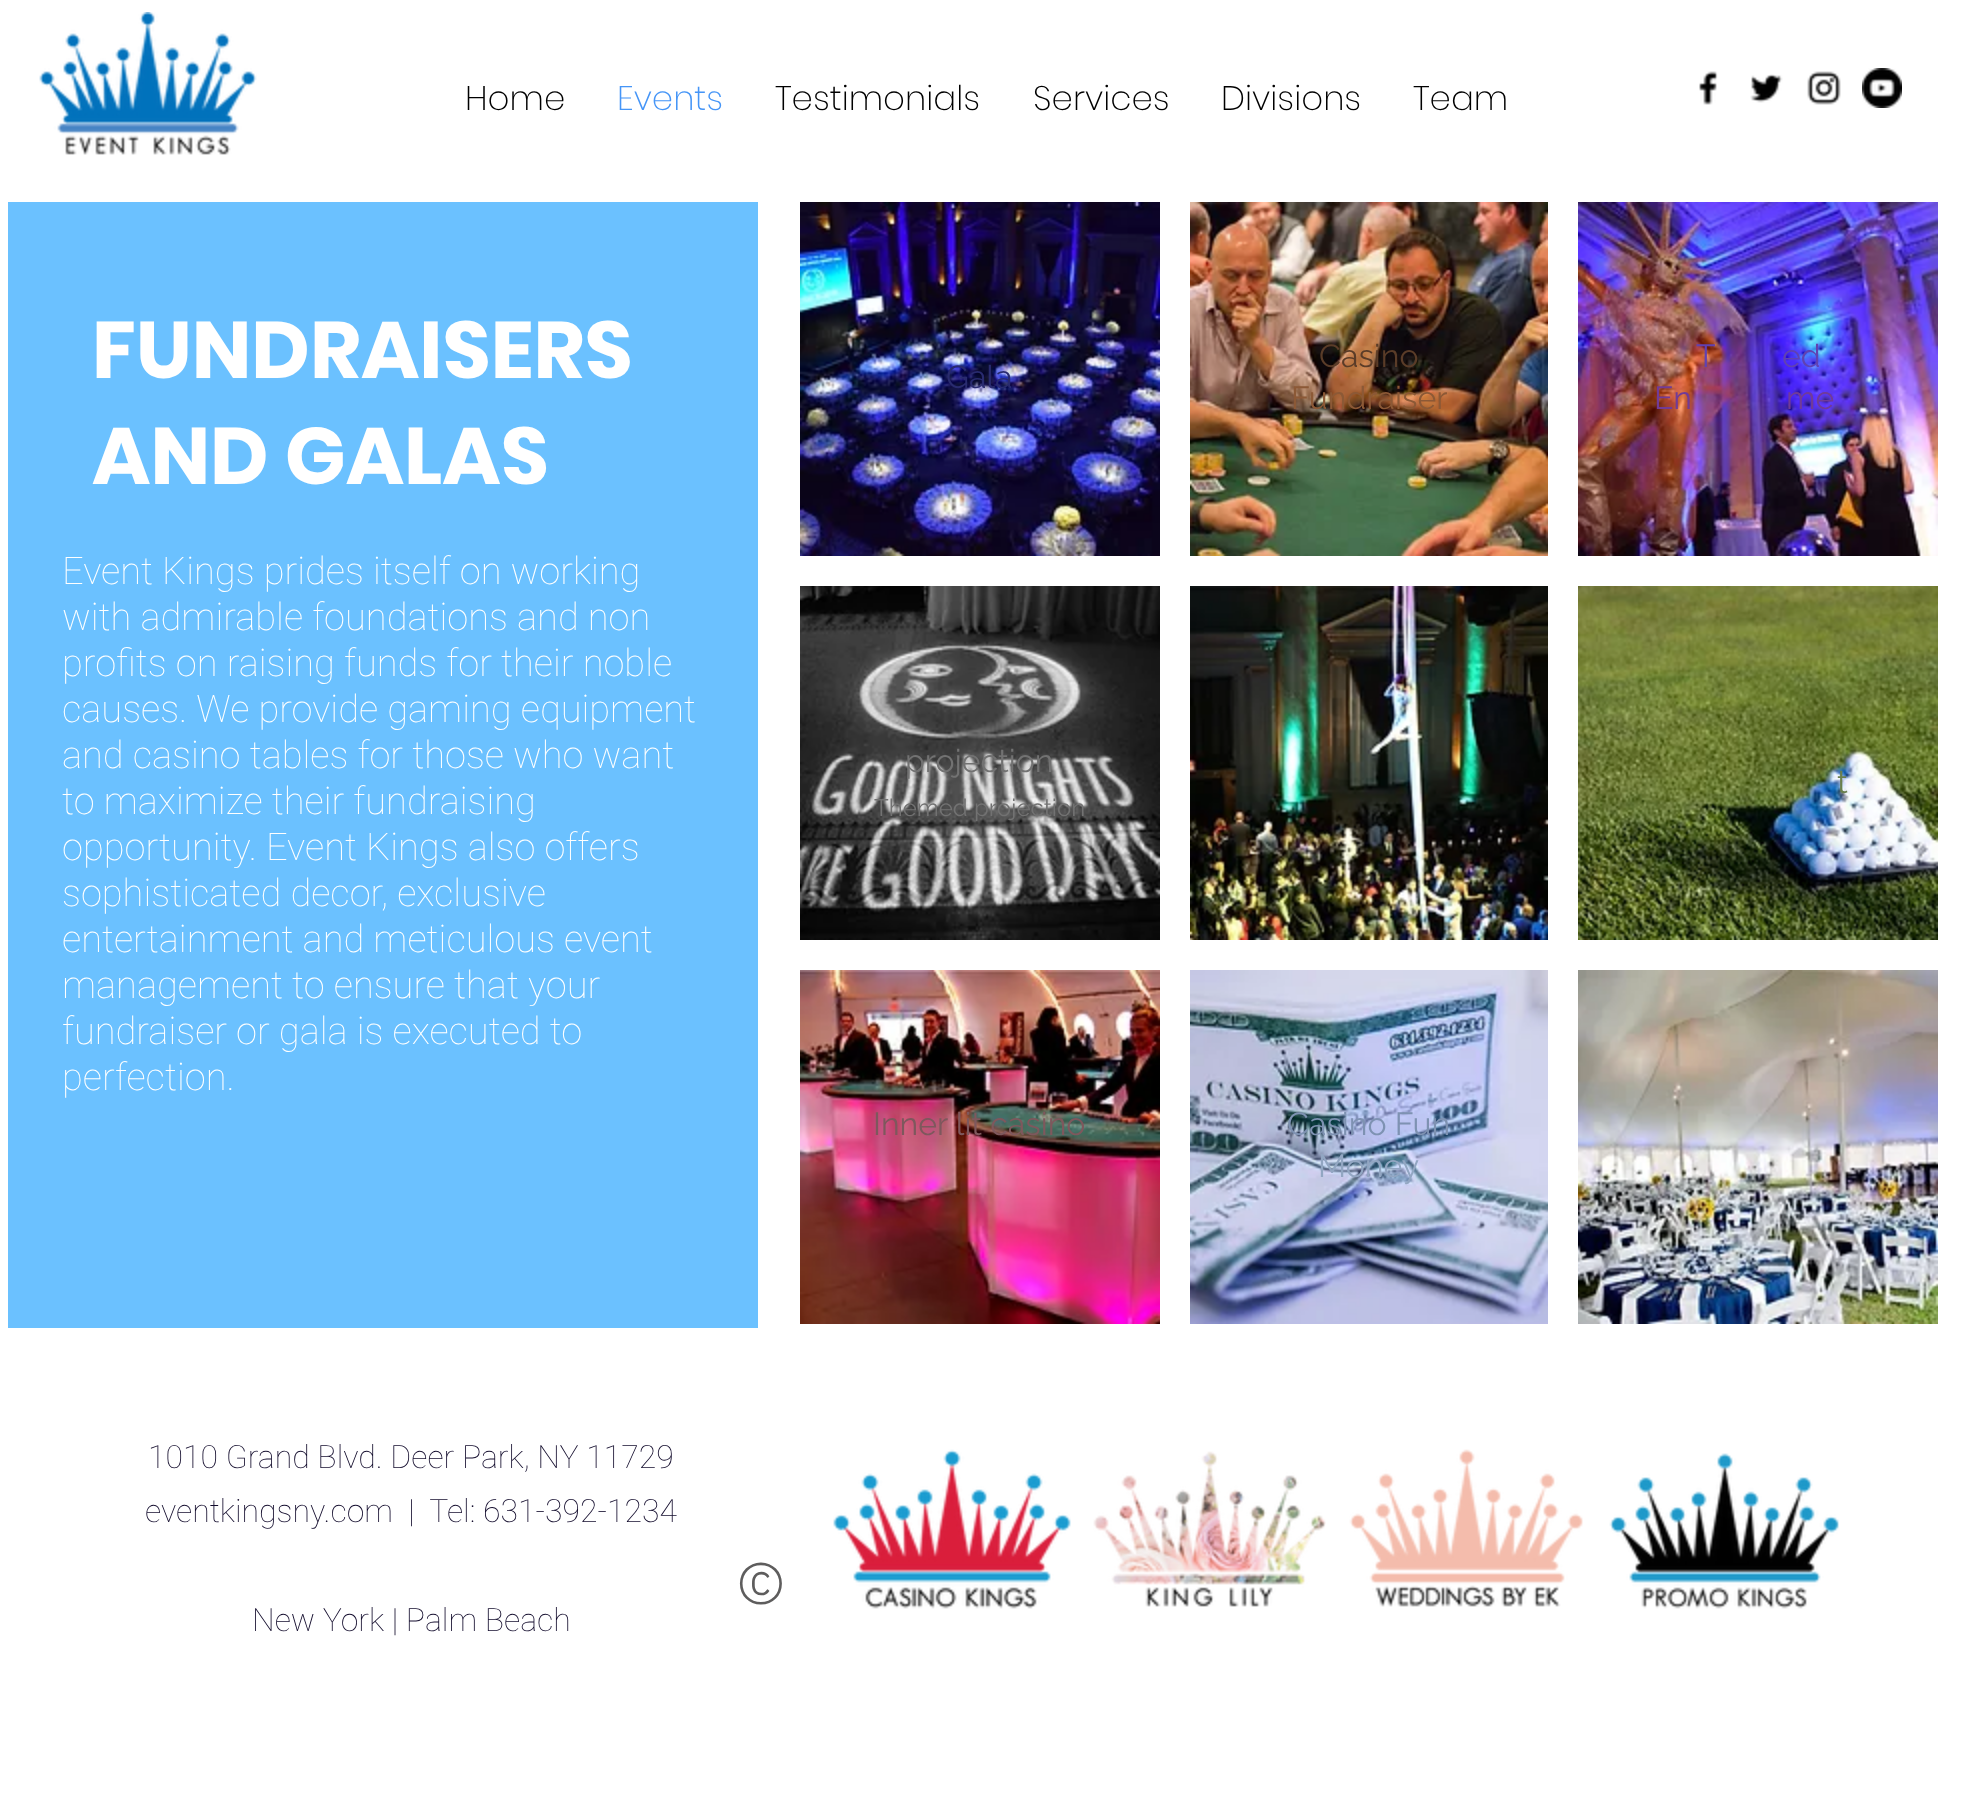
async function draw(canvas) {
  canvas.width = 1975
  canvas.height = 1815
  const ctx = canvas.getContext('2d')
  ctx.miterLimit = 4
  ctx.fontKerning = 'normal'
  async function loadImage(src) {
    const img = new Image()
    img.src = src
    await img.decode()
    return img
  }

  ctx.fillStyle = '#fff'
  ctx.fillRect(0, 0, 1975, 1815)
  ctx.drawImage(await loadImage('image0.png'), 39, 12, 218, 143)
  ctx.font = '200 34px Poppins'
  ctx.fillStyle = '#000'
  ctx.fillText('Home', 465, 110)
  ctx.fillStyle = '#4595f7'
  ctx.fillText('Events', 617, 110)
  ctx.fillStyle = '#000'
  ctx.fillText('Testimonials', 775, 110)
  ctx.fillText('Services', 1033, 110)
  ctx.fillText('Divisions', 1221, 110)
  ctx.fillText('Team', 1413, 110)
  ctx.drawImage(await loadImage('image1.png'), 1699, 71, 19, 34)
  ctx.drawImage(await loadImage('image2.png'), 1750, 74, 33, 29)
  ctx.drawImage(await loadImage('image3.png'), 1807, 71, 34, 34)
  ctx.drawImage(await loadImage('image4.png'), 1862, 68, 40, 40)
  ctx.fillStyle = '#6bc1ff'
  ctx.fillRect(8, 202, 750, 1126)
  ctx.font = 'bold 80px Poppins'
  ctx.fillStyle = '#fff'
  ctx.fillText('FUNDRAISERS', 92, 378)
  ctx.fillText('AND GALAS', 92, 484)
  ctx.font = '100 38px Roboto'
  ctx.fillText('Event Kings prides itself on working', 62, 584)
  ctx.fillText('with admirable foundations and non', 62, 630)
  ctx.fillText('profits on raising funds for their noble', 62, 676)
  ctx.fillText('causes. We provide gaming equipment', 62, 722)
  ctx.fillText('and casino tables for those who want', 62, 768)
  ctx.fillText('to maximize their fundraising', 62, 814)
  ctx.fillText('opportunity. Event Kings also offers', 62, 860)
  ctx.fillText('sophisticated decor, exclusive', 62, 906)
  ctx.fillText('entertainment and meticulous event', 62, 952)
  ctx.fillText('management to ensure that your', 62, 998)
  ctx.fillText('fundraiser or gala is executed to', 62, 1044)
  ctx.fillText('perfection.', 62, 1090)
  ctx.drawImage(await loadImage('image5.png'), 800, 202, 360, 354)
  ctx.font = '32px Raleway'
  ctx.fillStyle = '#292b6f'
  ctx.fillText('Gala', 946, 388)
  ctx.drawImage(await loadImage('image6.png'), 1190, 202, 358, 354)
  ctx.fillStyle = '#5a3c28'
  ctx.fillText('Casino', 1319, 367)
  ctx.fillStyle = '#8c5936'
  ctx.fillText('Fundraiser', 1291, 409)
  ctx.drawImage(await loadImage('image7.png'), 1578, 202, 360, 354)
  ctx.fillStyle = '#6141b1'
  ctx.fillText('T', 1696, 367)
  ctx.fillText('ed', 1782, 367)
  ctx.fillStyle = '#713b97'
  ctx.fillText('En', 1654, 409)
  ctx.fillText('me', 1786, 409)
  ctx.drawImage(await loadImage('image8.png'), 800, 586, 360, 354)
  ctx.fillStyle = '#727272'
  ctx.fillText('projection', 905, 772)
  ctx.font = '24px Raleway'
  ctx.fillText('Themed projection', 874, 816)
  ctx.drawImage(await loadImage('image9.png'), 1190, 586, 358, 354)
  ctx.drawImage(await loadImage('image10.png'), 1578, 586, 360, 354)
  ctx.font = '32px Raleway'
  ctx.fillStyle = '#6a7f4e'
  ctx.fillText('t', 1837, 793)
  ctx.drawImage(await loadImage('image11.png'), 800, 970, 360, 354)
  ctx.fillStyle = '#7e585d'
  ctx.fillText('Inner lit casino', 873, 1135)
  ctx.drawImage(await loadImage('image12.png'), 1190, 970, 358, 354)
  ctx.fillStyle = '#7e92b2'
  ctx.fillText('Casino Fun', 1287, 1135)
  ctx.fillStyle = '#92a6c2'
  ctx.fillText('Money', 1318, 1177)
  ctx.drawImage(await loadImage('image13.png'), 1578, 970, 360, 354)
  ctx.font = '100 32px Roboto'
  ctx.fillStyle = '#110a2b'
  ctx.fillText('1010 Grand Blvd. Deer Park, NY 11729', 148, 1468)
  ctx.fillText('eventkingsny.com  |  Tel: 631-392-1234', 145, 1522)
  ctx.fillText('New York | Palm Beach', 252, 1631)
  ctx.font = '300 60px "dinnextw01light"'
  ctx.fillStyle = '#5e5d5d'
  ctx.fillText('©', 736, 1604)
  ctx.drawImage(await loadImage('image14.png'), 833, 1449, 238, 160)
  ctx.drawImage(await loadImage('image15.png'), 1093, 1451, 233, 156)
  ctx.drawImage(await loadImage('image16.png'), 1349, 1449, 234, 158)
  ctx.drawImage(await loadImage('image17.png'), 1609, 1453, 230, 156)
}

draw(document.querySelector('canvas'))
